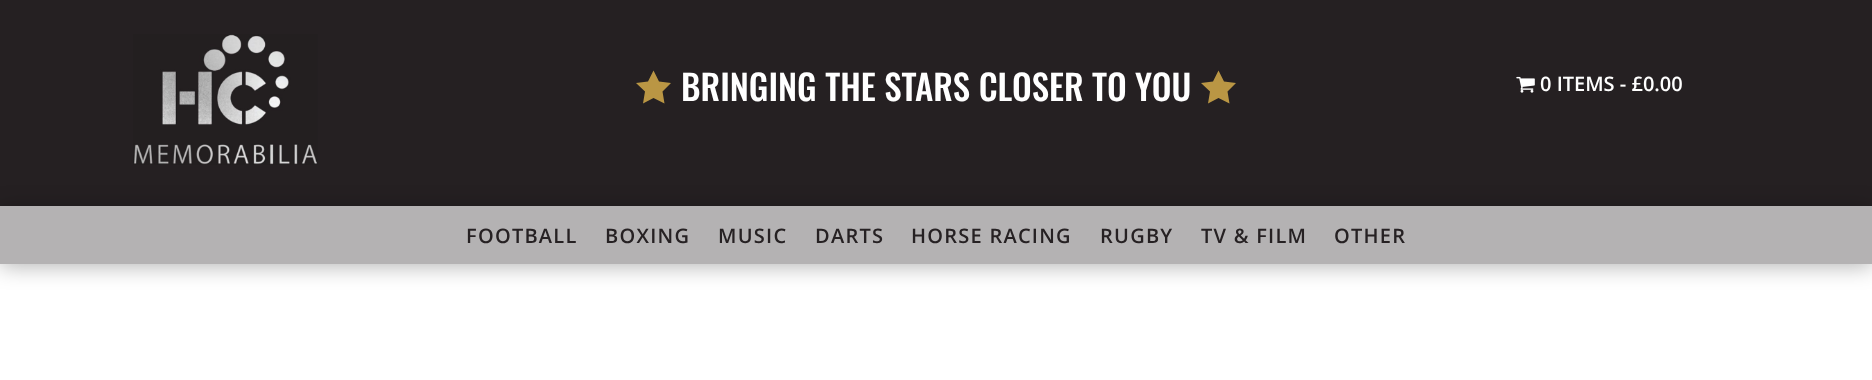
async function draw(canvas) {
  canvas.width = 1872
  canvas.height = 380
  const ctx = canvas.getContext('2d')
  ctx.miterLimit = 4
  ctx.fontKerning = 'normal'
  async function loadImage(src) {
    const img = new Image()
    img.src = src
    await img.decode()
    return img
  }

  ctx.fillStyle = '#fff'
  ctx.fillRect(0, 0, 1872, 380)
  ctx.fillStyle = '#252022'
  ctx.fillRect(0, 0, 1872, 206)
  ctx.drawImage(await loadImage('image0.png'), 133, 34, 185, 131)
  ctx.fillStyle = '#ba9644'
  ctx.beginPath()
  ctx.moveTo(659, 81.5)
  ctx.lineTo(653.5, 70.5)
  ctx.lineTo(648, 81.5)
  ctx.lineTo(636, 83)
  ctx.lineTo(645, 91.5)
  ctx.lineTo(643, 103.5)
  ctx.lineTo(653.5, 98)
  ctx.lineTo(664.5, 103.5)
  ctx.lineTo(662.5, 91.5)
  ctx.lineTo(671, 83)
  ctx.closePath()
  ctx.fill()
  ctx.font = '500 35px Oswald'
  ctx.fillStyle = '#fff'
  ctx.fillText('BRINGING THE STARS CLOSER TO YOU', 681, 101)
  ctx.fillStyle = '#ba9644'
  ctx.beginPath()
  ctx.moveTo(1224, 81.5)
  ctx.lineTo(1218.5, 70.5)
  ctx.lineTo(1213, 81.5)
  ctx.lineTo(1201, 83)
  ctx.lineTo(1210, 91.5)
  ctx.lineTo(1208, 103.5)
  ctx.lineTo(1218.5, 98)
  ctx.lineTo(1229.5, 103.5)
  ctx.lineTo(1227.5, 91.5)
  ctx.lineTo(1236, 83)
  ctx.closePath()
  ctx.fill()
  ctx.drawImage(await loadImage('image1.png'), 1516, 76, 19, 17)
  ctx.font = '600 20px Open Sans'
  ctx.fillStyle = '#fff'
  ctx.fillText('0 ITEMS - £0.00', 1540, 91)
  ctx.fillStyle = '#0000004d'
  ctx.filter = 'blur(11px)'
  ctx.beginPath()
  ctx.rect(0, 209, 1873, 57)
  ctx.fill()
  ctx.filter = 'none'
  ctx.fillStyle = '#b4b2b3'
  ctx.fillRect(0, 206, 1872, 58)
  ctx.letterSpacing = '1.25px'
  ctx.fillStyle = '#262123'
  ctx.fillText('FOOTBALL', 466, 243)
  ctx.fillText('BOXING', 605, 243)
  ctx.fillText('MUSIC', 718, 243)
  ctx.fillText('DARTS', 815, 243)
  ctx.fillText('HORSE RACING', 911, 243)
  ctx.fillText('RUGBY', 1100, 243)
  ctx.fillText('TV & FILM', 1201, 243)
  ctx.fillText('OTHER', 1334, 243)
}

draw(document.querySelector('canvas'))
